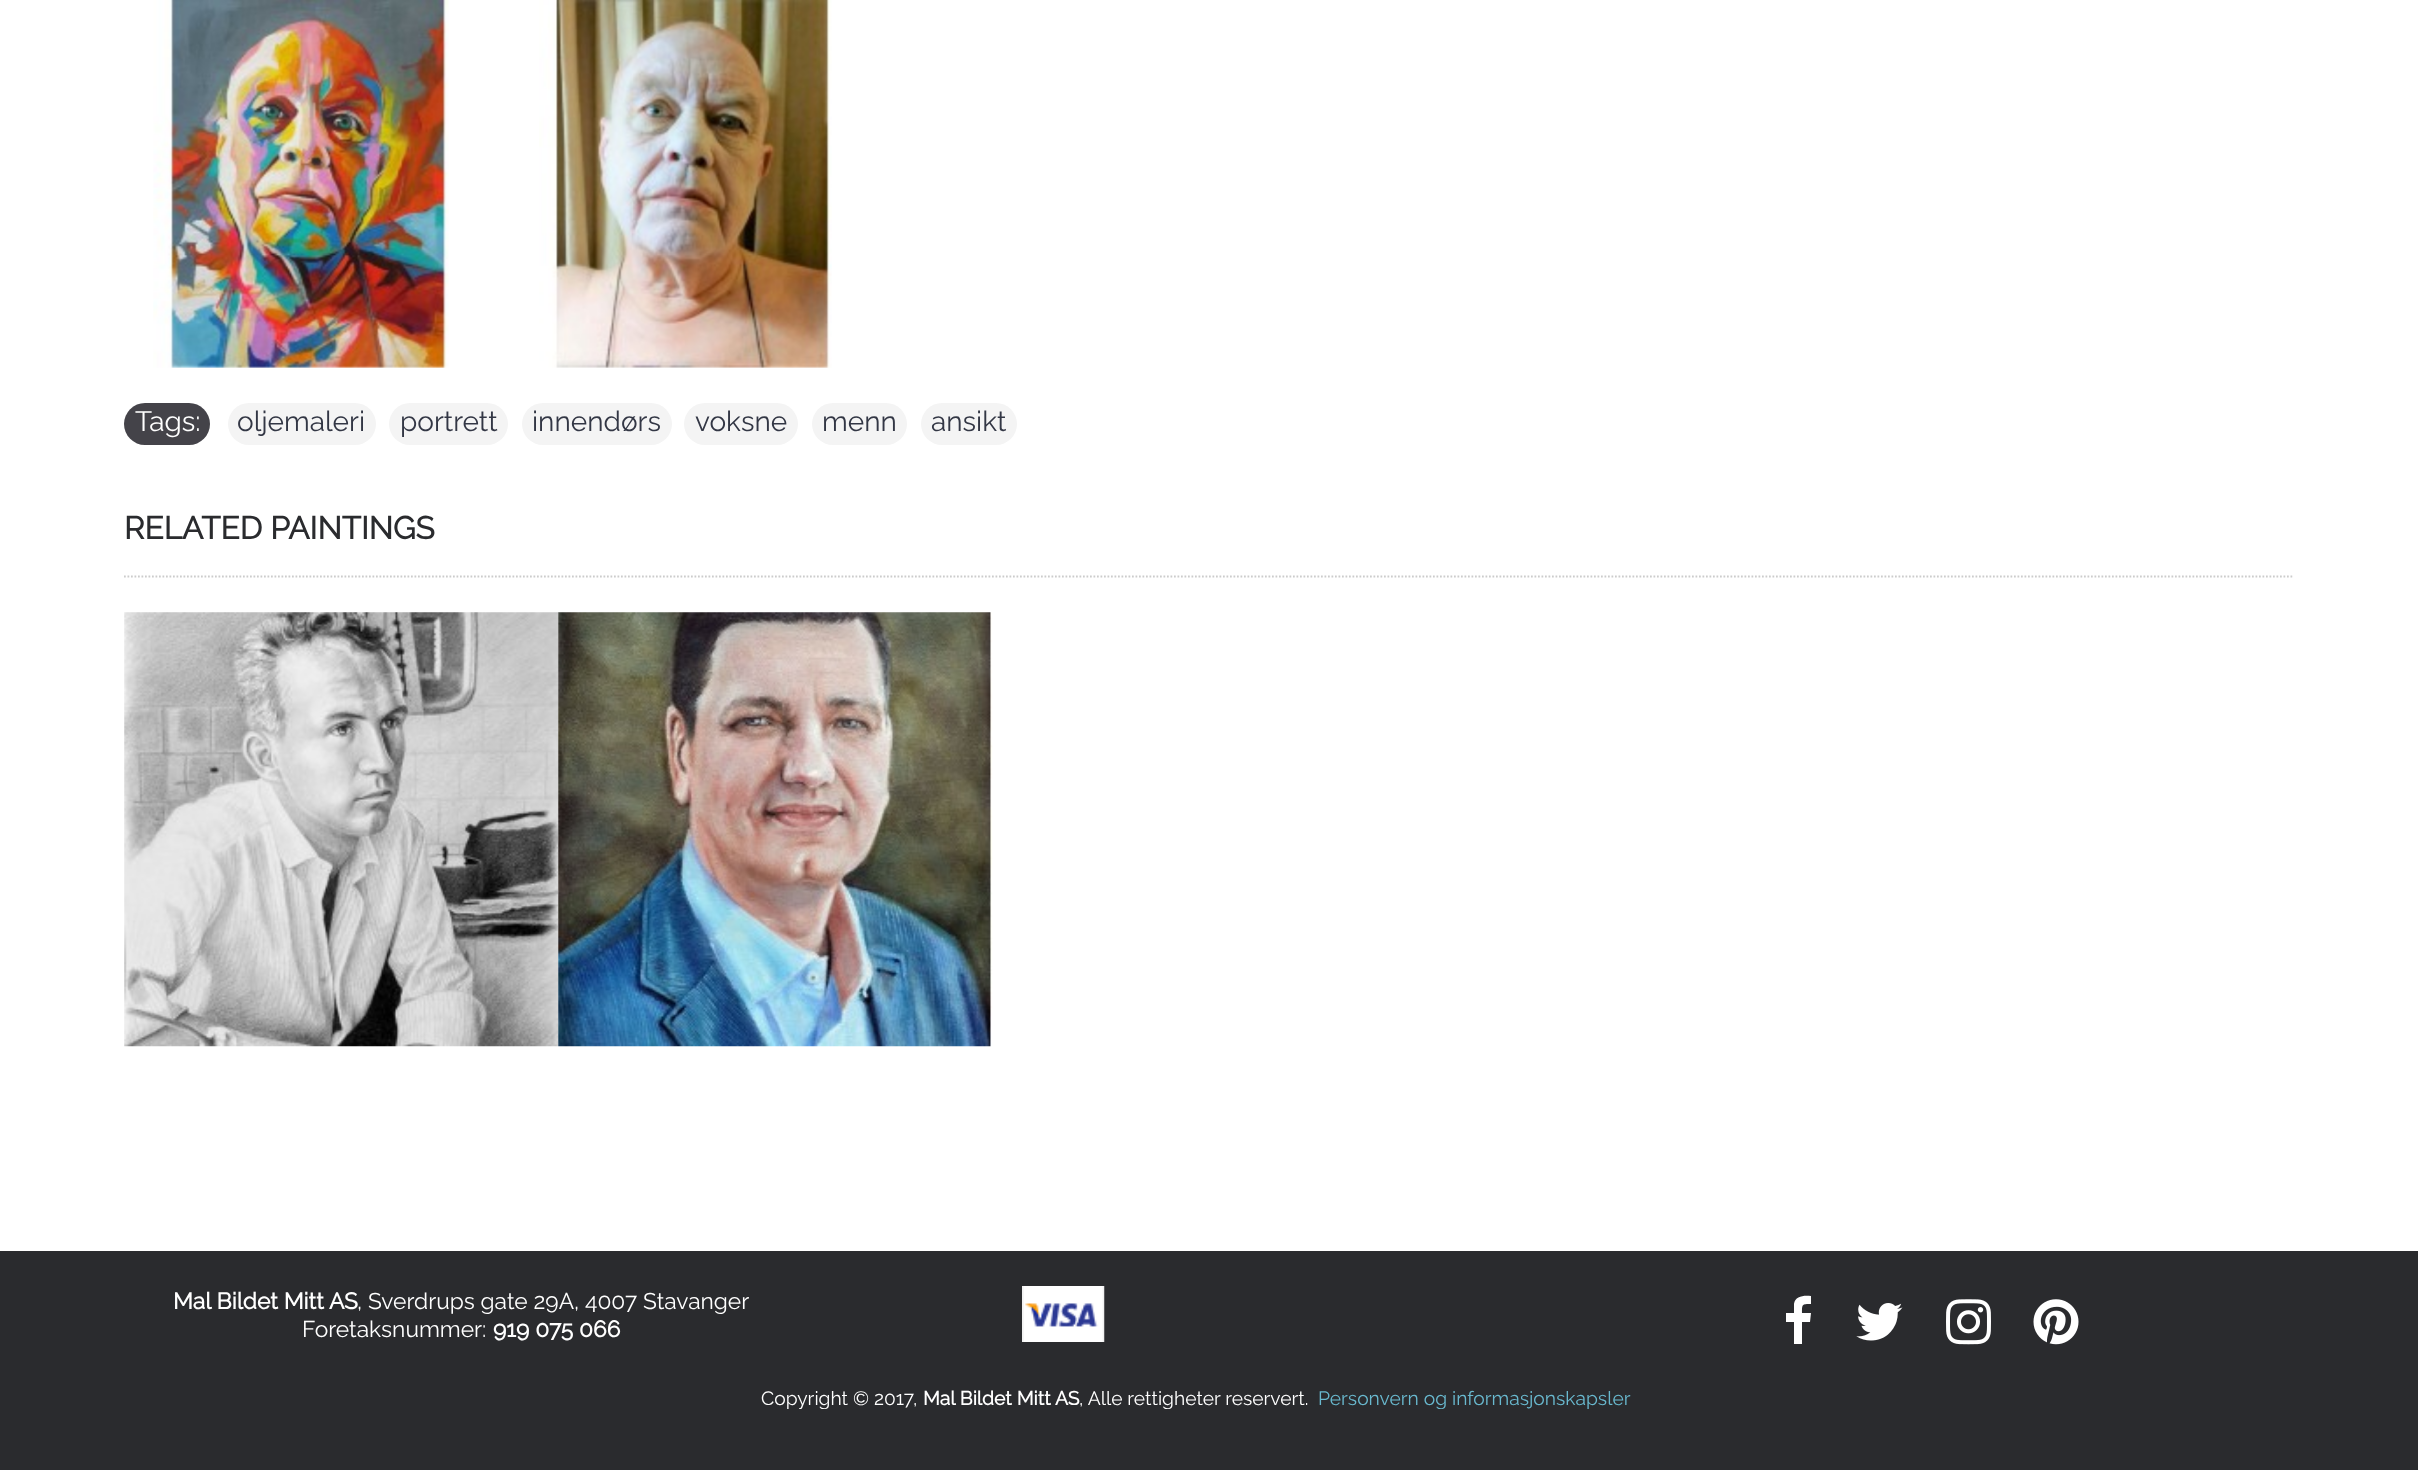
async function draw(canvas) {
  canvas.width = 2418
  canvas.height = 1470
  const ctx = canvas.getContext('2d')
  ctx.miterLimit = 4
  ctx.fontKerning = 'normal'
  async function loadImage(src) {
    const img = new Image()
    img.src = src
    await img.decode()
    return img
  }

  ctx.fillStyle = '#fff'
  ctx.fillRect(0, 0, 2418, 1470)
  ctx.drawImage(await loadImage('image0.png'), 153, 0, 296, 368)
  ctx.drawImage(await loadImage('image1.png'), 539, 0, 293, 368)
  ctx.fillStyle = '#444349'
  ctx.beginPath()
  ctx.roundRect(124, 403, 86, 42, 21)
  ctx.fill()
  ctx.font = '100 28px Raleway'
  ctx.fillStyle = '#fff'
  ctx.fillText('Tags:', 135, 431)
  ctx.fillStyle = '#f4f4f4'
  ctx.beginPath()
  ctx.roundRect(228, 403, 148, 42, 21)
  ctx.fill()
  ctx.fillStyle = '#333745'
  ctx.fillText('oljemaleri', 237, 431)
  ctx.fillStyle = '#f4f4f4'
  ctx.beginPath()
  ctx.roundRect(389, 403, 119, 42, 21)
  ctx.fill()
  ctx.fillStyle = '#333745'
  ctx.fillText('portrett', 400, 431)
  ctx.fillStyle = '#f4f4f4'
  ctx.beginPath()
  ctx.roundRect(522, 403, 150, 42, 21)
  ctx.fill()
  ctx.fillStyle = '#333745'
  ctx.fillText('innendørs', 532, 431)
  ctx.fillStyle = '#f4f4f4'
  ctx.beginPath()
  ctx.roundRect(684, 403, 114, 42, 21)
  ctx.fill()
  ctx.fillStyle = '#333745'
  ctx.fillText('voksne', 695, 431)
  ctx.fillStyle = '#f4f4f4'
  ctx.beginPath()
  ctx.roundRect(812, 403, 95, 42, 21)
  ctx.fill()
  ctx.fillStyle = '#333745'
  ctx.fillText('menn', 822, 431)
  ctx.fillStyle = '#f4f4f4'
  ctx.beginPath()
  ctx.roundRect(921, 403, 96, 42, 21)
  ctx.fill()
  ctx.fillStyle = '#333745'
  ctx.fillText('ansikt', 931, 431)
  ctx.beginPath()
  ctx.moveTo(124, 576.5)
  ctx.lineTo(2294, 576.5)
  ctx.strokeStyle = '#ccc'
  ctx.lineWidth = 1.8
  ctx.setLineDash([1.75, 1.75])
  ctx.stroke()
  ctx.font = 'bold 31.5px Raleway'
  ctx.fillStyle = '#2a2b2e'
  ctx.fillText('RELATED PAINTINGS', 124, 539)
  ctx.drawImage(await loadImage('image2.png'), 124, 612, 435, 435)
  ctx.fillStyle = '#fff'
  ctx.fillRect(558, 613, 1, 434)
  ctx.drawImage(await loadImage('image3.png'), 558, 612, 435, 435)
  ctx.fillStyle = '#2a2b2e'
  ctx.fillRect(0, 1251, 2418, 219)
  ctx.font = 'bold 22.75px Raleway'
  ctx.fillStyle = '#fff'
  ctx.fillText('Mal Bildet Mitt AS', 173, 1309)
  ctx.font = '100 22.75px Raleway'
  ctx.fillText(', Sverdrups gate 29A, 4007 Stavanger', 357, 1309)
  ctx.fillText('Foretaksnummer:', 302, 1337)
  ctx.font = 'bold 22.75px Raleway'
  ctx.fillText('919 075 066', 493, 1337)
  ctx.drawImage(await loadImage('image4.png'), 1022, 1286, 83, 56)
  ctx.beginPath()
  ctx.moveTo(1811, 1296)
  ctx.lineTo(1811, 1304)
  ctx.bezierCurveTo(1802, 1304, 1802, 1304, 1802, 1313)
  ctx.lineTo(1811, 1313)
  ctx.lineTo(1810, 1322)
  ctx.lineTo(1802, 1322)
  ctx.lineTo(1802, 1344)
  ctx.lineTo(1794, 1344)
  ctx.lineTo(1794, 1322)
  ctx.lineTo(1786, 1322)
  ctx.lineTo(1786, 1313)
  ctx.lineTo(1794, 1313)
  ctx.lineTo(1794, 1304)
  ctx.bezierCurveTo(1795, 1296, 1804, 1295, 1811, 1296)
  ctx.closePath()
  ctx.fill()
  ctx.drawImage(await loadImage('image5.png'), 1856, 1303, 47, 38)
  ctx.drawImage(await loadImage('image6.png'), 1946, 1299, 45, 46)
  ctx.drawImage(await loadImage('image7.png'), 2033, 1299, 46, 46)
  ctx.save()
  ctx.beginPath()
  ctx.rect(72, 1383, 2249, 26)
  ctx.clip()
  ctx.font = '100 19.25px Raleway'
  ctx.fillText('Copyright © 2017,', 761, 1405)
  ctx.restore()
  ctx.font = 'bold 19.25px Raleway'
  ctx.fillText('Mal Bildet Mitt AS', 923, 1405)
  ctx.save()
  ctx.beginPath()
  ctx.rect(72, 1383, 2249, 26)
  ctx.clip()
  ctx.font = '100 19.25px Raleway'
  ctx.fillText(', Alle rettigheter reservert.', 1079, 1405)
  ctx.fillStyle = '#69b9cf'
  ctx.fillText('Personvern og informasjonskapsler', 1318, 1405)
  ctx.restore()
}

draw(document.querySelector('canvas'))
